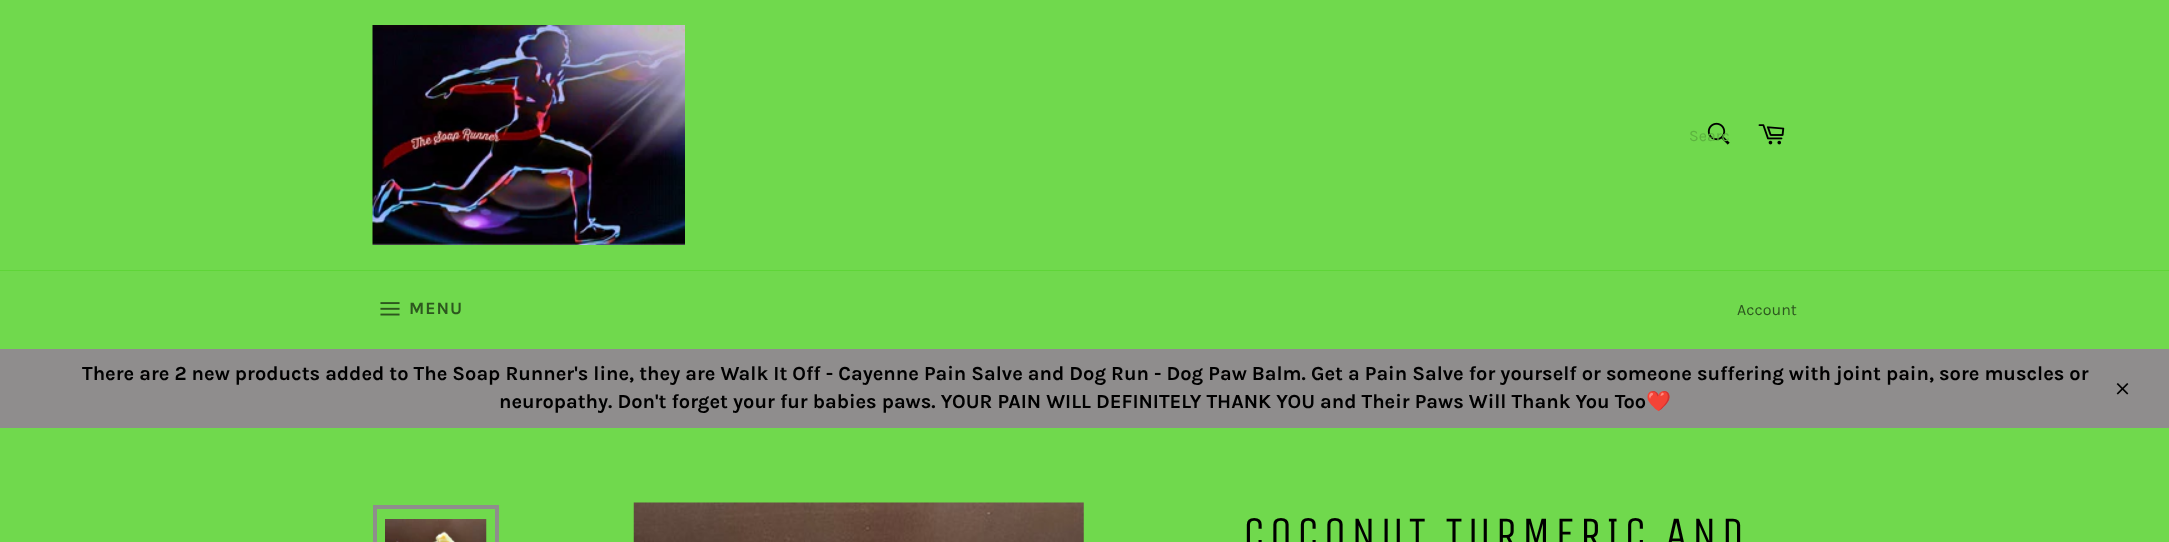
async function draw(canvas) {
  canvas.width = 2169
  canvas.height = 542
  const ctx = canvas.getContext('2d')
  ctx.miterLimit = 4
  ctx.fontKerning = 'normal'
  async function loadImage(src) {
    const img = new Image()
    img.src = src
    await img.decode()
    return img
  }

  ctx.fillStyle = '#70d94d'
  ctx.fillRect(0, 0, 2169, 542)
  ctx.drawImage(await loadImage('image0.png'), 372, 25, 313, 220)
  ctx.drawImage(await loadImage('image1.png'), 1707, 122, 23, 23)
  ctx.font = '16px Karla'
  ctx.fillStyle = '#5cb33f'
  ctx.fillText('Searc', 1689, 141)
  ctx.drawImage(await loadImage('image2.png'), 1758, 124, 27, 21)
  ctx.fillStyle = '#5fd538'
  ctx.fillRect(0, 270, 2169, 1)
  ctx.drawImage(await loadImage('image3.png'), 380, 302, 20, 14)
  ctx.letterSpacing = '1px'
  ctx.font = 'bold 17.5px Karla'
  ctx.fillStyle = '#2d571f'
  ctx.fillText('MENU', 409, 314)
  ctx.letterSpacing = '0px'
  ctx.font = '16px Karla'
  ctx.fillText('Account', 1737, 315)
  ctx.fillStyle = '#8f8d8d'
  ctx.fillRect(0, 349, 2169, 79)
  ctx.font = 'bold 20px Karla'
  ctx.fillStyle = '#000'
  ctx.fillText('There are 2 new products added to The Soap Runner\'s line, they are Walk It Off - Cayenne Pain Salve and Dog Run - Dog Paw Balm. Get a Pain Salve for yourself or someone suffering with joint pain, sore muscles or', 82, 380)
  ctx.fillText('neuropathy. Don\'t forget your fur babies paws. YOUR PAIN WILL DEFINITELY THANK YOU and Their Paws Will Thank You Too', 499, 408)
  ctx.font = 'bold 20px Noto Color Emoji'
  ctx.fillText('❤️', 1646, 408)
  ctx.drawImage(await loadImage('image4.png'), 2116, 383, 13, 12)
  ctx.drawImage(await loadImage('image5.png'), 385, 519, 102, 23)
  ctx.strokeStyle = '#8f8d8d'
  ctx.lineWidth = 4
  ctx.strokeRect(375, 507, 122, 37)
  ctx.drawImage(await loadImage('image6.png'), 633, 502, 451, 40)
  ctx.letterSpacing = '4.5px'
  ctx.font = '45px Unica One'
  ctx.fillText('COCONUT TURMERIC AND', 1243, 548)
}

draw(document.querySelector('canvas'))
